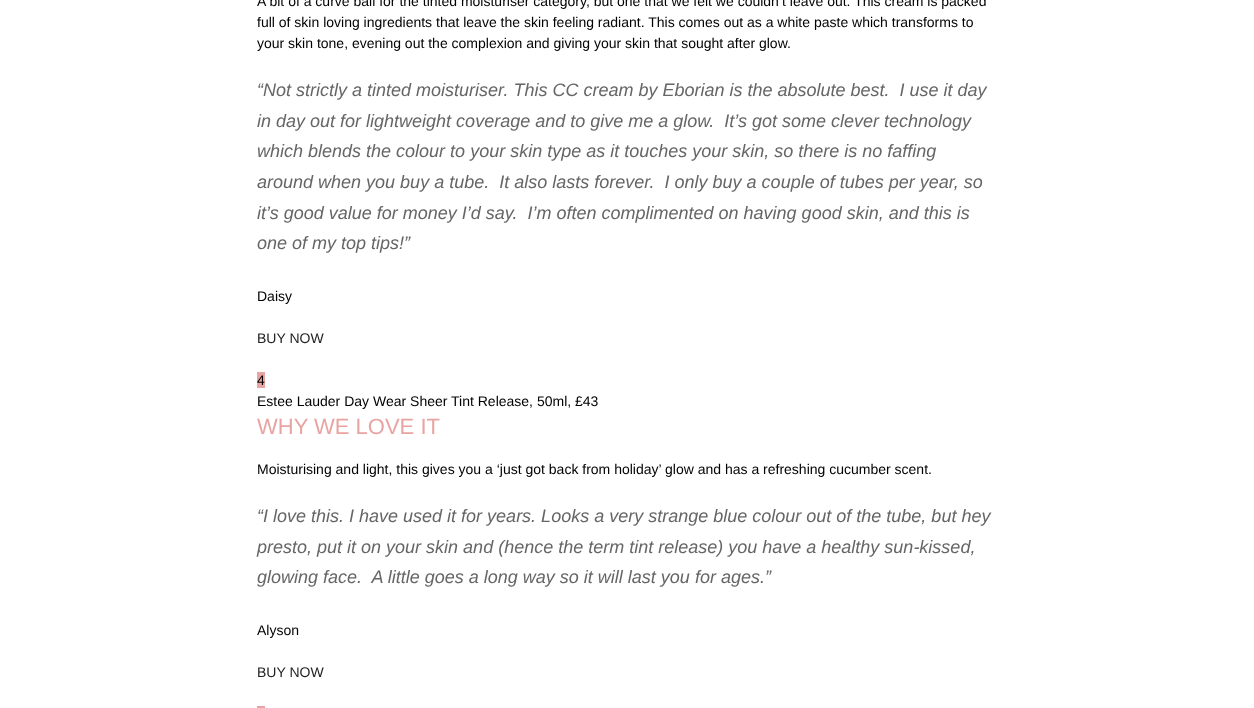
async function draw(canvas) {
  canvas.width = 1254
  canvas.height = 708
  const ctx = canvas.getContext('2d')
  ctx.miterLimit = 4
  ctx.fontKerning = 'normal'

  ctx.fillStyle = '#fff'
  ctx.fillRect(0, 0, 1254, 708)
  ctx.font = '14px Liberation Sans'
  ctx.fillStyle = '#000'
  ctx.fillText('A bit of a curve ball for the tinted moisturiser category, but one that we felt we couldn’t leave out. This cream is packed', 257, 6)
  ctx.fillText('full of skin loving ingredients that leave the skin feeling radiant. This comes out as a white paste which transforms to', 257, 27)
  ctx.fillText('your skin tone, evening out the complexion and giving your skin that sought after glow.', 257, 48)
  ctx.font = 'italic 18px Liberation Sans'
  ctx.fillStyle = '#666'
  ctx.fillText('“Not strictly a tinted moisturiser. This CC cream by Eborian is the absolute best.  I use it day', 257, 96)
  ctx.fillText('in day out for lightweight coverage and to give me a glow.  It’s got some clever technology', 257, 127)
  ctx.fillText('which blends the colour to your skin type as it touches your skin, so there is no faffing', 257, 157)
  ctx.fillText('around when you buy a tube.  It also lasts forever.  I only buy a couple of tubes per year, so', 257, 188)
  ctx.fillText('it’s good value for money I’d say.  I’m often complimented on having good skin, and this is', 257, 219)
  ctx.fillText('one of my top tips!”', 257, 249)
  ctx.font = '14px Liberation Sans'
  ctx.fillStyle = '#000'
  ctx.fillText('Daisy', 257, 301)
  ctx.fillStyle = '#222'
  ctx.fillText('BUY NOW', 257, 343)
  ctx.fillStyle = '#e8a4a2'
  ctx.fillRect(257, 372, 8, 16)
  ctx.fillStyle = '#000'
  ctx.fillText('4', 257, 385)
  ctx.fillText('Estee Lauder Day Wear Sheer Tint Release, 50ml, £43', 257, 406)
  ctx.font = '22px Liberation Sans'
  ctx.fillStyle = '#e8a4a2'
  ctx.fillText('WHY WE LOVE IT', 257, 434)
  ctx.font = '14px Liberation Sans'
  ctx.fillStyle = '#000'
  ctx.fillText('Moisturising and light, this gives you a ‘just got back from holiday’ glow and has a refreshing cucumber scent.', 257, 474)
  ctx.font = 'italic 18px Liberation Sans'
  ctx.fillStyle = '#666'
  ctx.fillText('“I love this. I have used it for years. Looks a very strange blue colour out of the tube, but hey', 257, 522)
  ctx.fillText('presto, put it on your skin and (hence the term tint release) you have a healthy sun-kissed,', 257, 553)
  ctx.fillText('glowing face.  A little goes a long way so it will last you for ages.”', 257, 583)
  ctx.font = '14px Liberation Sans'
  ctx.fillStyle = '#000'
  ctx.fillText('Alyson', 257, 635)
  ctx.fillStyle = '#222'
  ctx.fillText('BUY NOW', 257, 677)
  ctx.fillStyle = '#e8a4a2'
  ctx.fillRect(257, 706, 8, 2)
}

draw(document.querySelector('canvas'))
